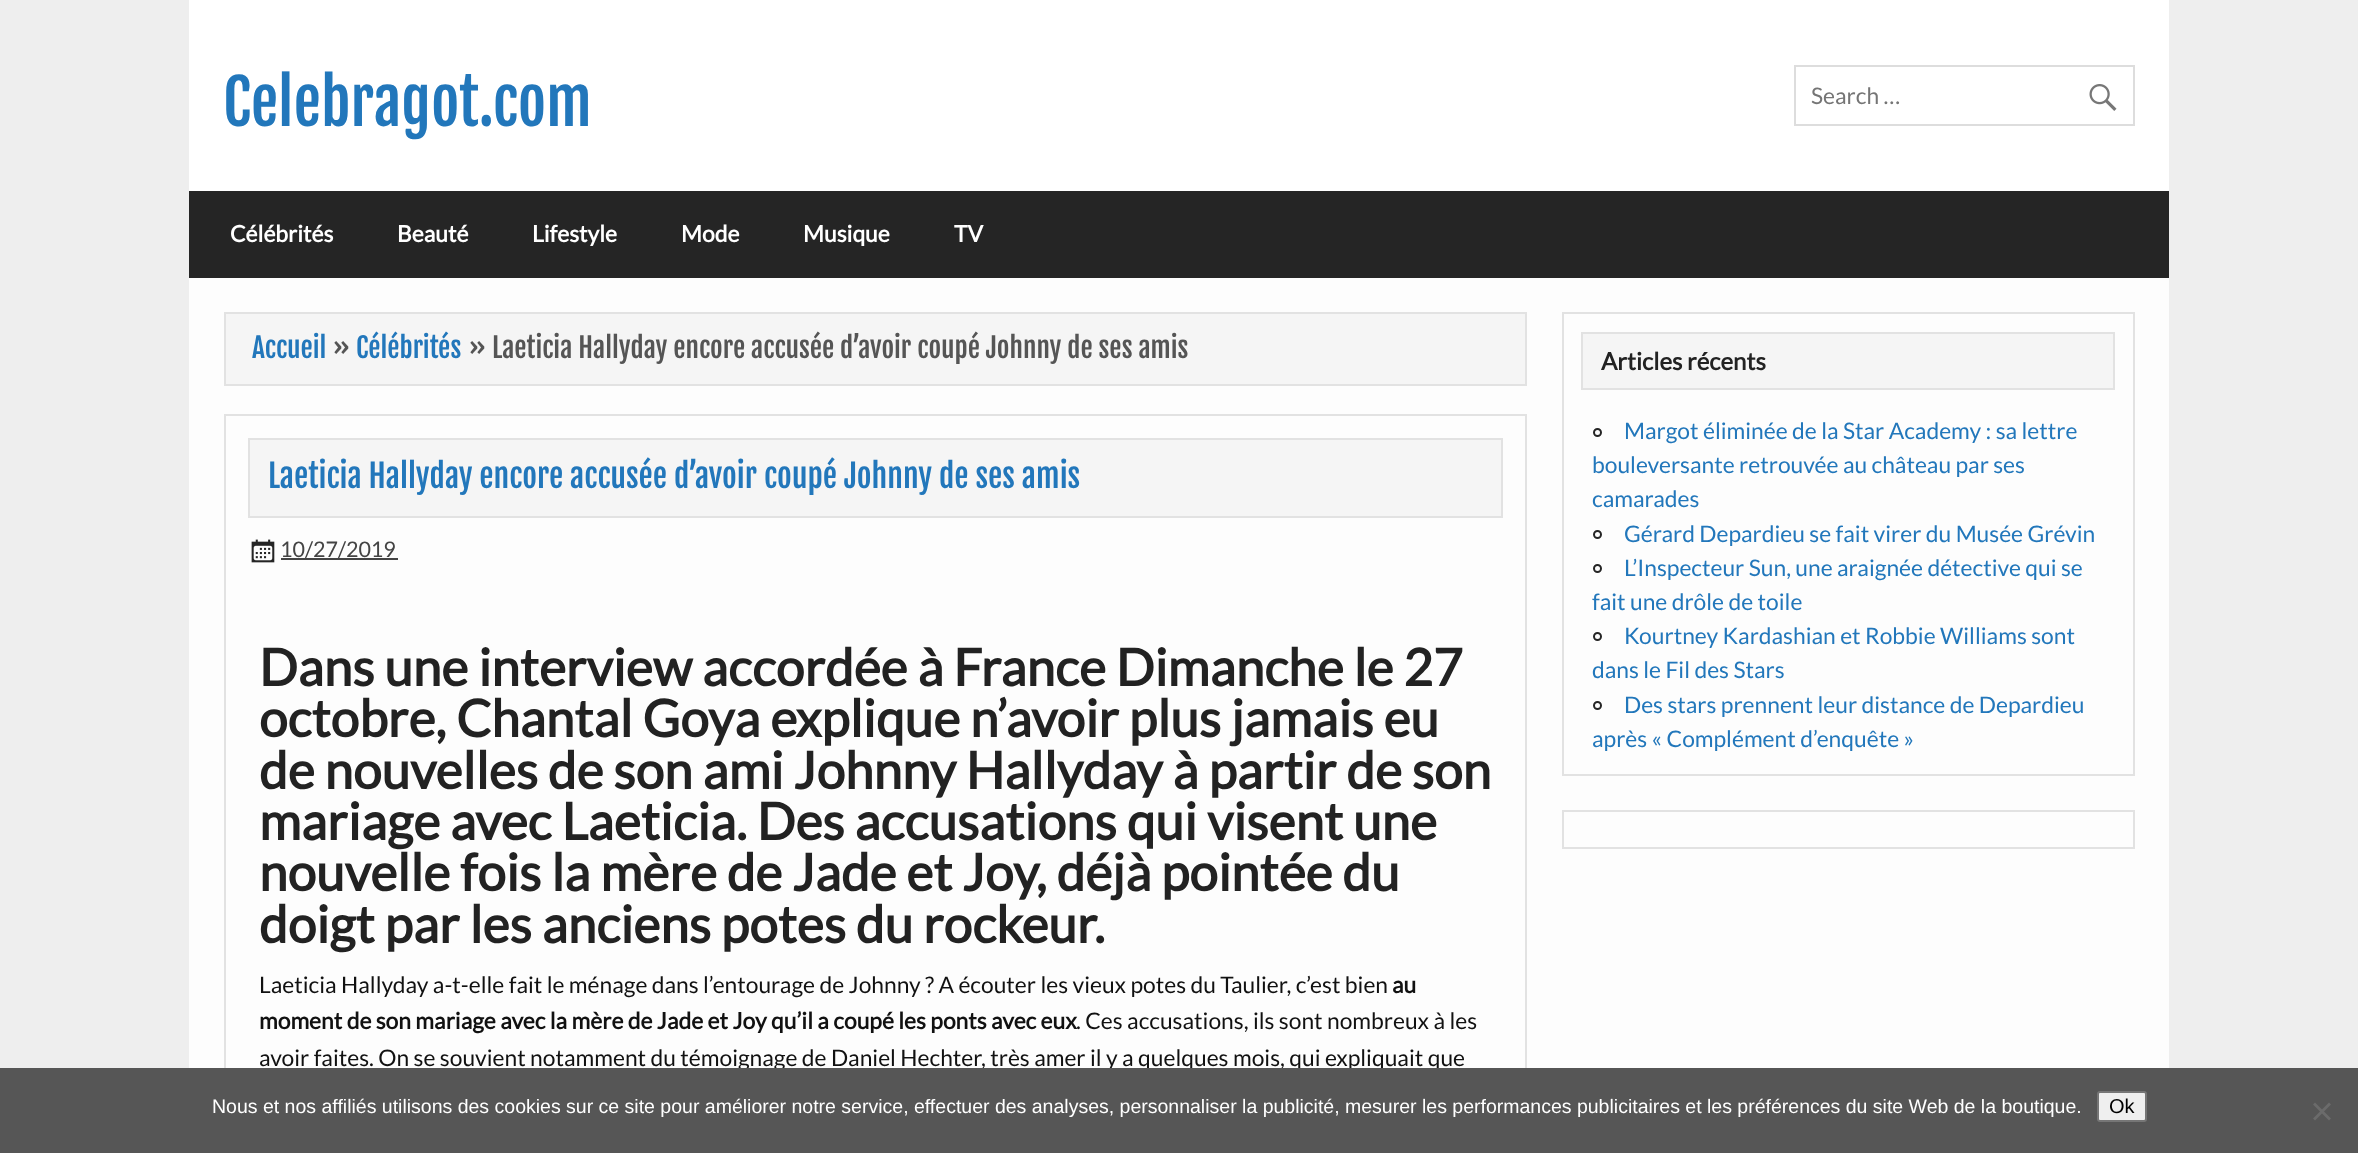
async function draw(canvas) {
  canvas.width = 2358
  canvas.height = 1153
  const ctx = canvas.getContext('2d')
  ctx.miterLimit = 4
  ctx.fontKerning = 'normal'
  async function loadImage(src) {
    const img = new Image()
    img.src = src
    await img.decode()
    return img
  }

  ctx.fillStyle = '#eee'
  ctx.fillRect(0, 0, 2358, 1153)
  ctx.fillStyle = '#fff'
  ctx.fillRect(189, 0, 1980, 191)
  ctx.font = '61.5px Fjalla One'
  ctx.fillStyle = '#27b'
  ctx.fillText('Celebragot.com', 223, 126)
  ctx.strokeStyle = '#ddd'
  ctx.lineWidth = 2
  ctx.strokeRect(1795, 66, 339, 59)
  ctx.font = '22.8px Lato'
  ctx.fillStyle = '#757575'
  ctx.fillText('Search …', 1811, 104)
  ctx.drawImage(await loadImage('image0.png'), 2089, 84, 28, 27)
  ctx.fillStyle = '#252525'
  ctx.fillRect(189, 191, 1980, 87)
  ctx.font = 'bold 22.8px Lato'
  ctx.fillStyle = '#fff'
  ctx.fillText('Célébrités', 230, 242)
  ctx.fillText('Beauté', 397, 242)
  ctx.fillText('Lifestyle', 532, 242)
  ctx.fillText('Mode', 681, 242)
  ctx.fillText('Musique', 803, 242)
  ctx.fillText('TV', 954, 242)
  ctx.fillStyle = '#fdfdfd'
  ctx.fillRect(189, 278, 1980, 790)
  ctx.fillStyle = '#f5f5f5'
  ctx.beginPath()
  ctx.rect(225, 313, 1301, 72)
  ctx.fill()
  ctx.strokeStyle = '#e2e2e2'
  ctx.stroke()
  ctx.font = '27.35px Fjalla One'
  ctx.fillStyle = '#27b'
  ctx.fillText('Accueil', 252, 358)
  ctx.fillStyle = '#555'
  ctx.fillText('»', 332, 358)
  ctx.fillStyle = '#27b'
  ctx.fillText('Célébrités', 356, 358)
  ctx.fillStyle = '#555'
  ctx.fillText('» Laeticia Hallyday encore accusée d’avoir coupé Johnny de ses amis', 468, 358)
  ctx.strokeRect(225, 415, 1301, 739)
  ctx.fillStyle = '#f5f5f5'
  ctx.beginPath()
  ctx.rect(249, 439, 1253, 78)
  ctx.fill()
  ctx.stroke()
  ctx.font = '31.9px Fjalla One'
  ctx.fillStyle = '#27b'
  ctx.fillText('Laeticia Hallyday encore accusée d’avoir coupé Johnny de ses amis', 268, 488)
  ctx.drawImage(await loadImage('image1.png'), 251, 539, 24, 24)
  ctx.font = '21.5px Lato'
  ctx.fillStyle = '#444'
  ctx.fillText('10/27/2019', 280, 557)
  ctx.fillRect(281, 558, 117, 2)
  ctx.font = 'bold 51.3px Lato'
  ctx.fillStyle = '#222'
  ctx.fillText('Dans une interview accordée à France Dimanche le 27', 259, 686)
  ctx.fillText('octobre, Chantal Goya explique n’avoir plus jamais eu', 259, 737)
  ctx.fillText('de nouvelles de son ami Johnny Hallyday à partir de son', 259, 789)
  ctx.fillText('mariage avec Laeticia. Des accusations qui visent une', 259, 840)
  ctx.fillText('nouvelle fois la mère de Jade et Joy, déjà pointée du', 259, 891)
  ctx.fillText('doigt par les anciens potes du rockeur.', 259, 943)
  ctx.font = '22.8px Lato'
  ctx.fillStyle = '#111'
  ctx.fillText('Laeticia Hallyday a-t-elle fait le ménage dans l’entourage de Johnny ? A écouter les vieux potes du Taulier, c’est bien', 259, 993)
  ctx.font = 'bold 22.8px Lato'
  ctx.fillText('au', 1392, 993)
  ctx.fillText('moment de son mariage avec la mère de Jade et Joy qu’il a coupé les ponts avec eux', 259, 1029)
  ctx.font = '22.8px Lato'
  ctx.fillText('. Ces accusations, ils sont nombreux à les', 1076, 1029)
  ctx.fillText('avoir faites. On se souvient notamment du témoignage de Daniel Hechter, très amer il y a quelques mois, qui expliquait que', 259, 1066)
  ctx.strokeRect(1563, 313, 571, 462)
  ctx.fillStyle = '#f5f5f5'
  ctx.beginPath()
  ctx.rect(1582, 333, 532, 56)
  ctx.fill()
  ctx.stroke()
  ctx.font = 'bold 24px Lato'
  ctx.fillStyle = '#222'
  ctx.fillText('Articles récents', 1601, 370)
  ctx.beginPath()
  ctx.arc(1597.5, 432.5, 3.5, 0, 2 * Math.PI)
  ctx.strokeStyle = '#252525'
  ctx.stroke()
  ctx.font = '22.8px Lato'
  ctx.fillStyle = '#27b'
  ctx.fillText('Margot éliminée de la Star Academy : sa lettre', 1624, 439)
  ctx.fillText('bouleversante retrouvée au château par ses', 1592, 473)
  ctx.fillText('camarades', 1592, 507)
  ctx.beginPath()
  ctx.arc(1597.5, 534.5, 3.5, 0, 2 * Math.PI)
  ctx.stroke()
  ctx.fillText('Gérard Depardieu se fait virer du Musée Grévin', 1624, 542)
  ctx.beginPath()
  ctx.arc(1597.5, 568.5, 3.5, 0, 2 * Math.PI)
  ctx.stroke()
  ctx.fillText('L’Inspecteur Sun, une araignée détective qui se', 1624, 576)
  ctx.fillText('fait une drôle de toile', 1592, 610)
  ctx.beginPath()
  ctx.arc(1597.5, 636.5, 3.5, 0, 2 * Math.PI)
  ctx.stroke()
  ctx.fillText('Kourtney Kardashian et Robbie Williams sont', 1624, 644)
  ctx.fillText('dans le Fil des Stars', 1592, 678)
  ctx.beginPath()
  ctx.arc(1597.5, 705.5, 3.5, 0, 2 * Math.PI)
  ctx.stroke()
  ctx.fillText('Des stars prennent leur distance de Depardieu', 1624, 713)
  ctx.fillText('après « Complément d’enquête »', 1592, 747)
  ctx.strokeStyle = '#e2e2e2'
  ctx.strokeRect(1563, 811, 571, 37)
  ctx.fillStyle = '#565656'
  ctx.fillRect(0, 1068, 2358, 85)
  ctx.font = '19.5px Liberation Sans'
  ctx.fillStyle = '#fff'
  ctx.fillText('Nous et nos affiliés utilisons des cookies sur ce site pour améliorer notre service, effectuer des analyses, personnaliser la publicité, mesurer les performances publicitaires et les préférences du site Web de la boutique.', 212, 1113)
  ctx.fillStyle = '#efefef'
  ctx.beginPath()
  ctx.roundRect(2098, 1092, 48, 29, 2)
  ctx.fill()
  ctx.strokeStyle = '#767676'
  ctx.stroke()
  ctx.font = '20px Liberation Sans'
  ctx.fillStyle = '#000'
  ctx.fillText('Ok', 2109, 1113)
  ctx.fillStyle = '#6b6b6b'
  ctx.beginPath()
  ctx.moveTo(2329, 1102.5)
  ctx.lineTo(2331, 1104.5)
  ctx.lineTo(2315, 1120.5)
  ctx.lineTo(2313, 1118.5)
  ctx.closePath()
  ctx.fill()
  ctx.beginPath()
  ctx.moveTo(2313, 1104.5)
  ctx.lineTo(2315, 1102.5)
  ctx.lineTo(2331, 1118.5)
  ctx.lineTo(2329, 1120.5)
  ctx.closePath()
  ctx.fill()
}

draw(document.querySelector('canvas'))
